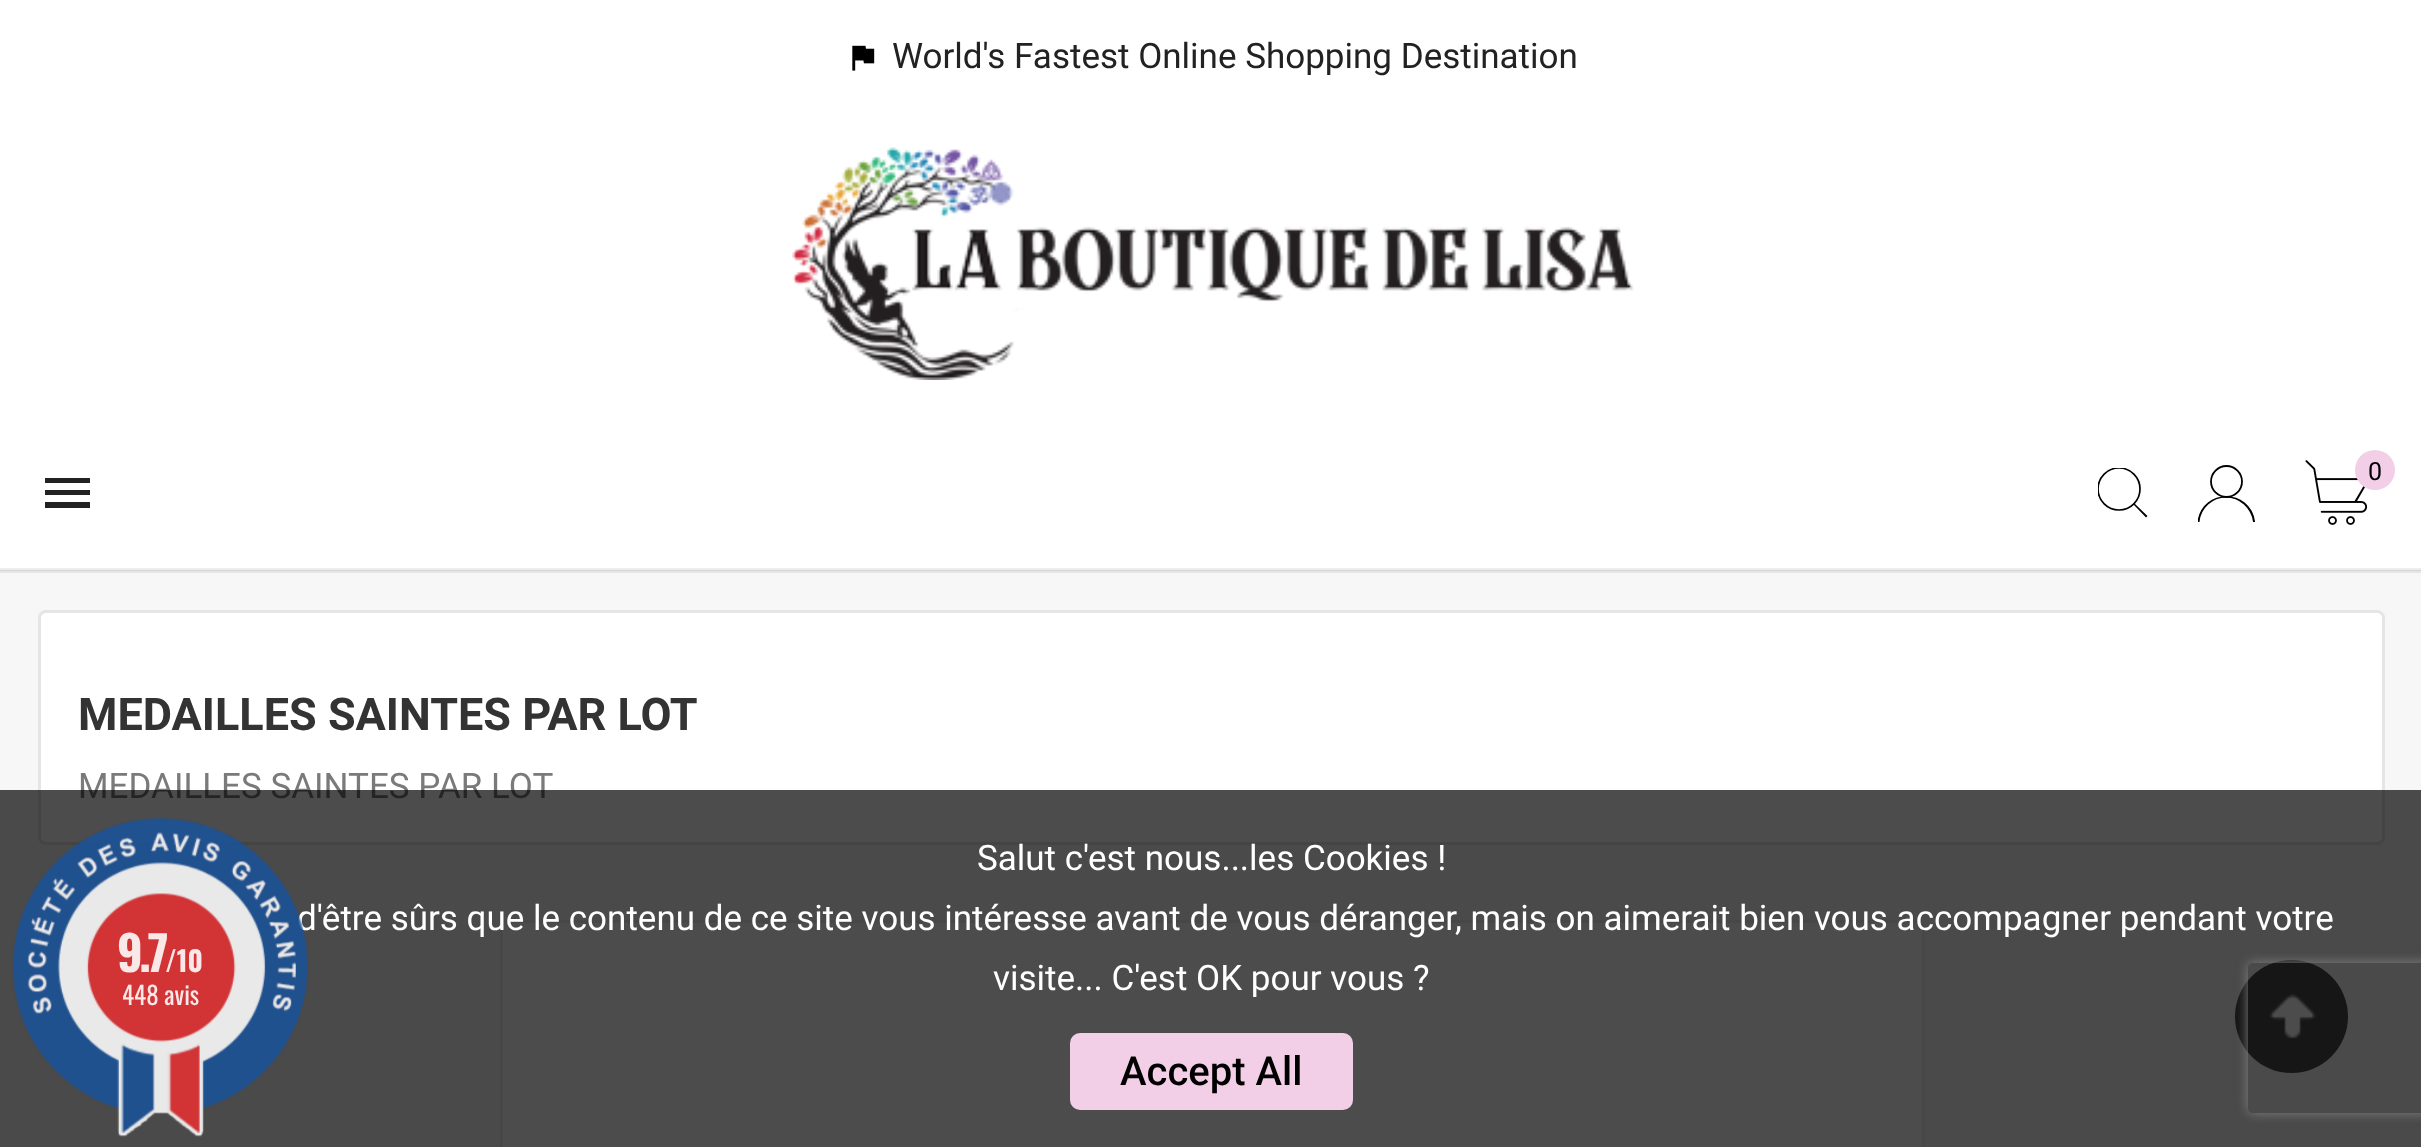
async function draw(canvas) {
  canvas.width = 2421
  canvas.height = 1147
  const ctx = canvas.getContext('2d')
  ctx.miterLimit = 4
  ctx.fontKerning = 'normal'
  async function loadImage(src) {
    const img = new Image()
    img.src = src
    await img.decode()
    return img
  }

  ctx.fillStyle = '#f7f7f7'
  ctx.fillRect(0, 0, 2421, 1147)
  ctx.fillStyle = '#fff'
  ctx.fillRect(0, 0, 2421, 568)
  ctx.fillStyle = '#ededed'
  ctx.fillRect(0, 568, 2421, 2)
  ctx.fillStyle = '#e5e5e5'
  ctx.fillRect(0, 571, 2421, 2)
  ctx.fillStyle = '#d5d5d5'
  ctx.fillRect(0, 570, 2421, 1)
  ctx.drawImage(await loadImage('image0.png'), 852, 45, 23, 26)
  ctx.font = '35px Roboto'
  ctx.fillStyle = '#222'
  ctx.fillText('World\'s Fastest Online Shopping Destination', 892, 68)
  ctx.drawImage(await loadImage('image1.png'), 791, 147, 843, 233)
  ctx.fillStyle = '#000'
  ctx.beginPath()
  ctx.moveTo(2146, 517.5)
  ctx.lineTo(2133.5, 504.5)
  ctx.lineTo(2134.5, 503.5)
  ctx.lineTo(2147.5, 516)
  ctx.closePath()
  ctx.fill()
  ctx.save()
  ctx.beginPath()
  ctx.rect(2098, 468, 50, 50)
  ctx.clip()
  ctx.beginPath()
  ctx.arc(2119, 489, 21, 0, 2 * Math.PI)
  ctx.strokeStyle = '#000'
  ctx.lineWidth = 1.7
  ctx.stroke()
  ctx.restore()
  ctx.save()
  ctx.beginPath()
  ctx.rect(2198, 465, 57, 58)
  ctx.clip()
  ctx.beginPath()
  ctx.moveTo(2226, 497)
  ctx.bezierCurveTo(2240, 497, 2251.5, 508, 2253.5, 521.5)
  ctx.lineTo(2254.5, 521.5)
  ctx.bezierCurveTo(2249.5, 488.5, 2203, 488.5, 2198, 521.5)
  ctx.lineTo(2199, 521.5)
  ctx.bezierCurveTo(2200.5, 508, 2212, 497, 2226, 497)
  ctx.closePath()
  ctx.strokeStyle = '#000'
  ctx.lineWidth = 1.1
  ctx.stroke()
  ctx.restore()
  ctx.beginPath()
  ctx.arc(2226.5, 481.5, 15.5, 0, 2 * Math.PI)
  ctx.strokeStyle = '#000'
  ctx.lineWidth = 1.8
  ctx.stroke()
  ctx.drawImage(await loadImage('image2.png'), 2305, 460, 63, 65)
  ctx.fillStyle = '#f2cfe7'
  ctx.beginPath()
  ctx.arc(2375, 470, 20, 0, 2 * Math.PI)
  ctx.fill()
  ctx.font = '25px Roboto'
  ctx.fillStyle = '#000'
  ctx.fillText('0', 2368, 480)
  ctx.fillStyle = '#222'
  ctx.beginPath()
  ctx.moveTo(45, 478)
  ctx.lineTo(90, 478)
  ctx.lineTo(90, 483)
  ctx.lineTo(45, 483)
  ctx.closePath()
  ctx.moveTo(45, 495)
  ctx.lineTo(45, 490)
  ctx.lineTo(90, 490)
  ctx.lineTo(90, 495)
  ctx.closePath()
  ctx.moveTo(45, 508)
  ctx.lineTo(45, 502)
  ctx.lineTo(90, 502)
  ctx.lineTo(90, 508)
  ctx.closePath()
  ctx.fill()
  ctx.fillStyle = '#fff'
  ctx.beginPath()
  ctx.roundRect(39.5, 611.5, 2344, 232, 6.5)
  ctx.fill()
  ctx.strokeStyle = '#e5e5e5'
  ctx.lineWidth = 3
  ctx.stroke()
  ctx.font = 'bold 45px Roboto'
  ctx.fillStyle = '#333'
  ctx.fillText('MEDAILLES SAINTES PAR LOT', 78, 730)
  ctx.font = '35px Roboto'
  ctx.fillStyle = '#7a7a7a'
  ctx.fillText('MEDAILLES SAINTES PAR LOT', 78, 798)
  ctx.fillStyle = '#fff'
  ctx.beginPath()
  ctx.roundRect(500, 920, 1425, 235, 8)
  ctx.fill()
  ctx.beginPath()
  ctx.roundRect(501.5, 921.5, 1422, 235, 6.5)
  ctx.strokeStyle = '#00000012'
  ctx.stroke()
  ctx.fillStyle = '#4c4c4c'
  ctx.beginPath()
  ctx.arc(2291.5, 1016.5, 56.5, 0, 2 * Math.PI)
  ctx.fill()
  ctx.drawImage(await loadImage('image3.png'), 2269, 994, 47, 45)
  ctx.fillStyle = '#000000b3'
  ctx.fillRect(0, 790, 2421, 357)
  ctx.save()
  ctx.beginPath()
  ctx.moveTo(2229, 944)
  ctx.lineTo(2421, 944)
  ctx.lineTo(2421, 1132)
  ctx.lineTo(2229, 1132)
  ctx.closePath()
  ctx.moveTo(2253, 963)
  ctx.lineTo(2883, 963)
  ctx.bezierCurveTo(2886, 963, 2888, 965, 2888, 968)
  ctx.lineTo(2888, 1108)
  ctx.bezierCurveTo(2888, 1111, 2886, 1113, 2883, 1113)
  ctx.lineTo(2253, 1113)
  ctx.bezierCurveTo(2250, 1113, 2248, 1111, 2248, 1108)
  ctx.lineTo(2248, 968)
  ctx.bezierCurveTo(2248, 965, 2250, 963, 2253, 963)
  ctx.closePath()
  ctx.clip('evenodd')
  ctx.fillStyle = '#808080'
  ctx.filter = 'blur(6px)'
  ctx.beginPath()
  ctx.roundRect(2248, 963, 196, 150, 5)
  ctx.fill()
  ctx.filter = 'none'
  ctx.restore()
  ctx.fillStyle = '#fff'
  ctx.fillText('d\'être sûrs que le contenu de ce site vous intéresse avant de vous déranger, mais on aimerait bien vous accompagner pendant votre', 297, 930)
  ctx.drawImage(await loadImage('image4.png'), 12, 818, 296, 319)
  ctx.letterSpacing = '-3.5px'
  ctx.font = 'bold 48px Oswald'
  ctx.fillStyle = '#fae7e7'
  ctx.fillText('9.7', 117, 972)
  ctx.letterSpacing = '0px'
  ctx.font = 'bold 28px Oswald'
  ctx.fillText('/10', 165, 972)
  ctx.font = '25px Oswald'
  ctx.fillText('448 avis', 122, 1005)
  ctx.font = '35px Roboto'
  ctx.fillStyle = '#fff'
  ctx.fillText('Salut c\'est nous...les Cookies !', 977, 870)
  ctx.fillText('visite... C\'est OK pour vous ?', 993, 990)
  ctx.fillStyle = '#f2cfe7'
  ctx.beginPath()
  ctx.roundRect(1070, 1033, 283, 77, 10)
  ctx.fill()
  ctx.font = '500 40px Roboto'
  ctx.fillStyle = '#000'
  ctx.fillText('Accept All', 1120, 1085)
}

draw(document.querySelector('canvas'))
